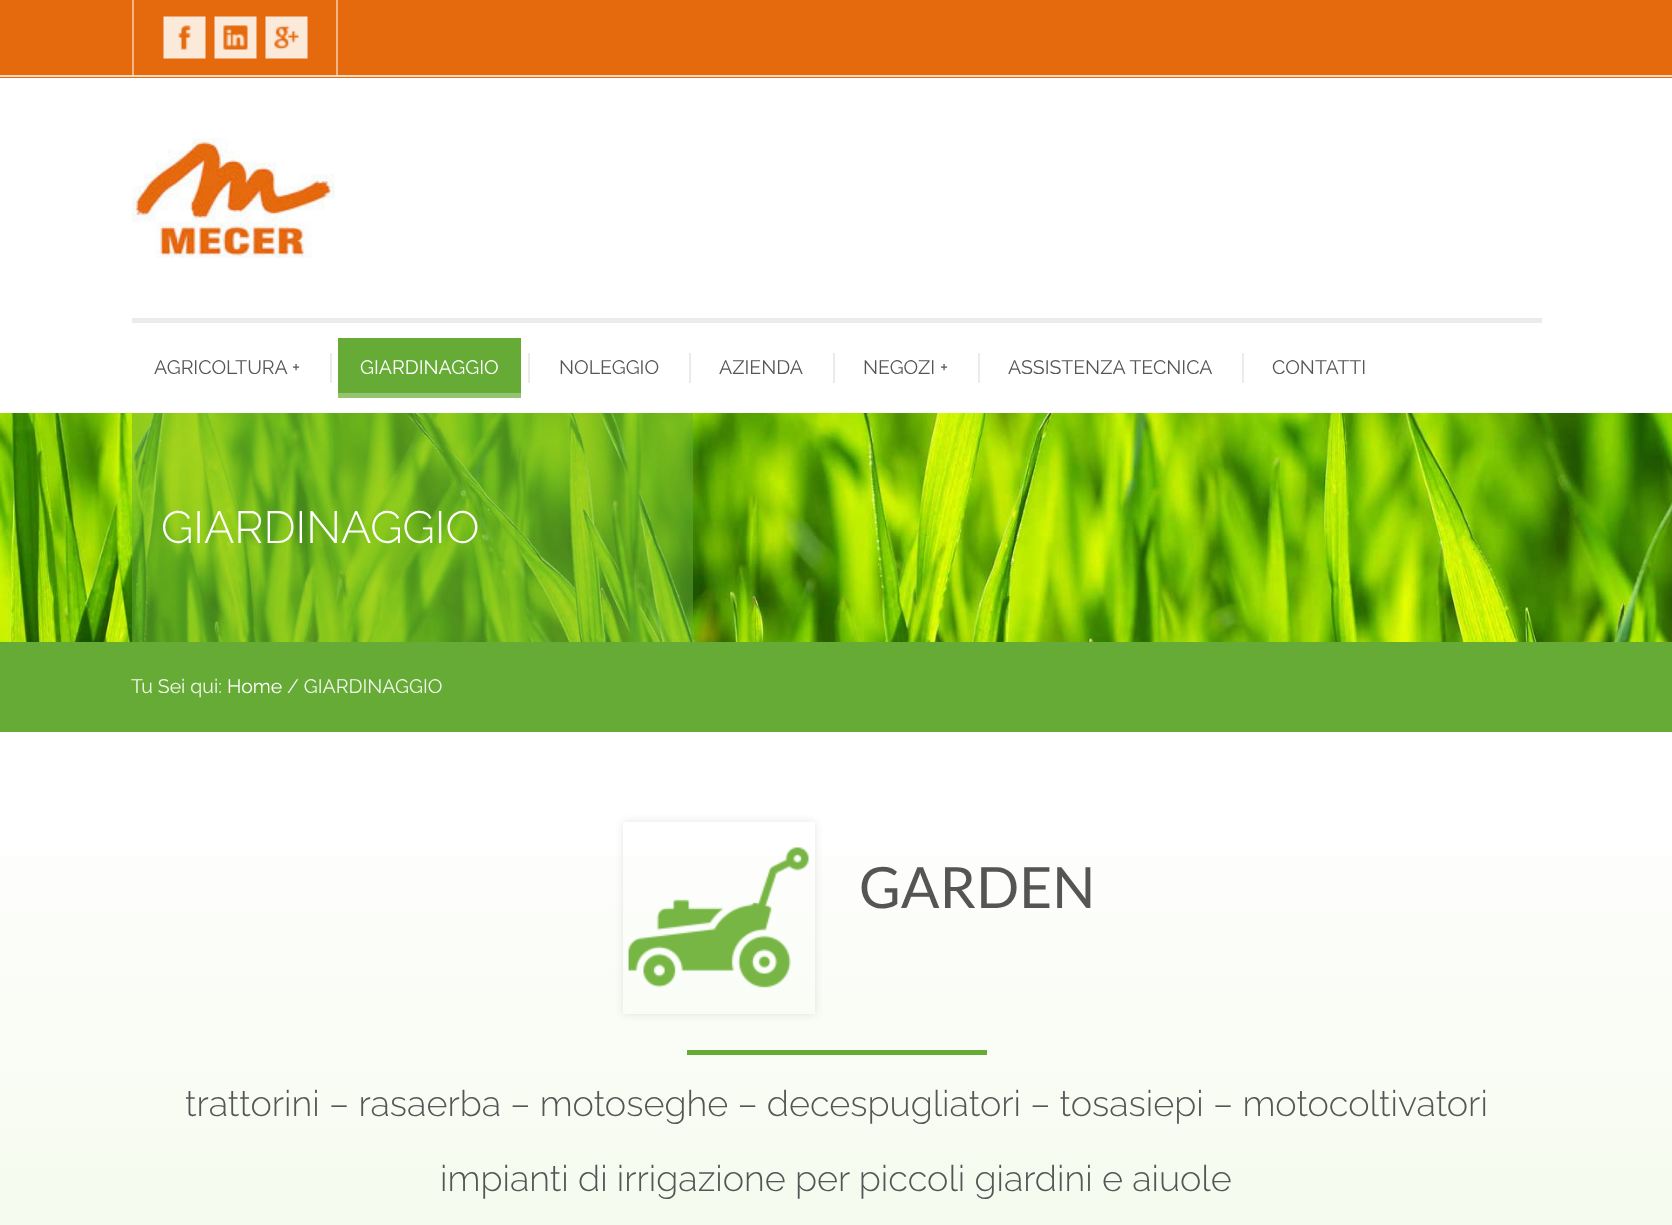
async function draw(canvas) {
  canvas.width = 1672
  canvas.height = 1225
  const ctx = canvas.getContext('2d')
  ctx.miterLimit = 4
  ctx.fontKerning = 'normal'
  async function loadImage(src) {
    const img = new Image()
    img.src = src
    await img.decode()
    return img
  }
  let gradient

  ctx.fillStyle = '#fff'
  ctx.fillRect(0, 0, 1672, 1225)
  ctx.fillStyle = '#e56a0d'
  ctx.fillRect(0, 0, 1672, 78)
  ctx.fillStyle = '#f9dac3'
  ctx.fillRect(0, 75, 1672, 2)
  ctx.fillStyle = '#f2b586'
  ctx.fillRect(336, 0, 2, 75)
  ctx.fillRect(132, 0, 2, 75)
  ctx.drawImage(await loadImage('image0.png'), 163, 16, 43, 43)
  ctx.drawImage(await loadImage('image1.png'), 214, 16, 43, 43)
  ctx.drawImage(await loadImage('image2.png'), 265, 16, 43, 43)
  ctx.fillStyle = '#ebebeb'
  ctx.fillRect(132, 318, 1410, 5)
  ctx.drawImage(await loadImage('image3.png'), 132, 138, 203, 120)
  ctx.font = '19.5px Raleway'
  ctx.fillStyle = '#555'
  ctx.fillText('AGRICOLTURA', 154, 374)
  ctx.fillText('+', 292, 374)
  ctx.fillStyle = '#66ab36'
  ctx.fillRect(338, 338, 183, 55)
  ctx.fillStyle = '#94c472'
  ctx.fillRect(338, 393, 183, 5)
  ctx.fillStyle = '#ebebeb'
  ctx.fillRect(330, 353, 2, 30)
  ctx.fillStyle = '#fff'
  ctx.fillText('GIARDINAGGIO', 360, 374)
  ctx.fillStyle = '#ebebeb'
  ctx.fillRect(528, 353, 2, 30)
  ctx.fillStyle = '#555'
  ctx.fillText('NOLEGGIO', 559, 374)
  ctx.fillStyle = '#ebebeb'
  ctx.fillRect(689, 353, 2, 30)
  ctx.fillStyle = '#555'
  ctx.fillText('AZIENDA', 719, 374)
  ctx.fillStyle = '#ebebeb'
  ctx.fillRect(833, 353, 2, 30)
  ctx.fillStyle = '#555'
  ctx.fillText('NEGOZI +', 863, 374)
  ctx.fillStyle = '#ebebeb'
  ctx.fillRect(978, 353, 2, 30)
  ctx.fillStyle = '#555'
  ctx.fillText('ASSISTENZA TECNICA', 1008, 374)
  ctx.fillStyle = '#ebebeb'
  ctx.fillRect(1242, 353, 2, 30)
  ctx.fillStyle = '#555'
  ctx.fillText('CONTATTI', 1272, 374)
  ctx.drawImage(await loadImage('image4.png'), 0, 413, 1672, 229)
  ctx.fillStyle = '#66ab3680'
  ctx.fillRect(132, 413, 561, 229)
  ctx.font = '300 45px Raleway'
  ctx.fillStyle = '#fff'
  ctx.fillText('GIARDINAGGIO', 161, 543)
  ctx.fillStyle = '#66ab36'
  ctx.fillRect(0, 642, 1672, 90)
  ctx.font = '19.5px Raleway'
  ctx.fillStyle = '#f0f7eb'
  ctx.fillText('Tu Sei qui:', 131, 693)
  ctx.fillStyle = '#fff'
  ctx.fillText('Home', 227, 693)
  ctx.fillStyle = '#f0f7eb'
  ctx.fillText('/ GIARDINAGGIO', 287, 693)
  gradient = ctx.createLinearGradient(836, 792, 836, 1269)
  gradient.addColorStop(0, '#fff')
  gradient.addColorStop(1, '#f4faec')
  ctx.fillStyle = gradient
  ctx.fillRect(0, 855, 1672, 370)
  ctx.save()
  ctx.beginPath()
  ctx.moveTo(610, 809)
  ctx.lineTo(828, 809)
  ctx.lineTo(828, 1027)
  ctx.lineTo(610, 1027)
  ctx.closePath()
  ctx.moveTo(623, 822)
  ctx.lineTo(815, 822)
  ctx.lineTo(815, 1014)
  ctx.lineTo(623, 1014)
  ctx.closePath()
  ctx.clip('evenodd')
  ctx.fillStyle = '#0000001a'
  ctx.filter = 'blur(4px)'
  ctx.beginPath()
  ctx.rect(623, 822, 192, 192)
  ctx.fill()
  ctx.filter = 'none'
  ctx.restore()
  ctx.drawImage(await loadImage('image5.png'), 628, 847, 181, 141)
  ctx.font = '57px Lato'
  ctx.fillStyle = '#555'
  ctx.fillText('GARDEN', 859, 908)
  ctx.fillStyle = '#66ab36'
  ctx.fillRect(687, 1050, 300, 5)
  ctx.font = '300 36px Raleway'
  ctx.fillStyle = '#555'
  ctx.fillText('trattorini – rasaerba – motoseghe – decespugliatori – tosasiepi – motocoltivatori', 185, 1116)
  ctx.fillText('impianti di irrigazione per piccoli giardini e aiuole', 440, 1191)
}

draw(document.querySelector('canvas'))
